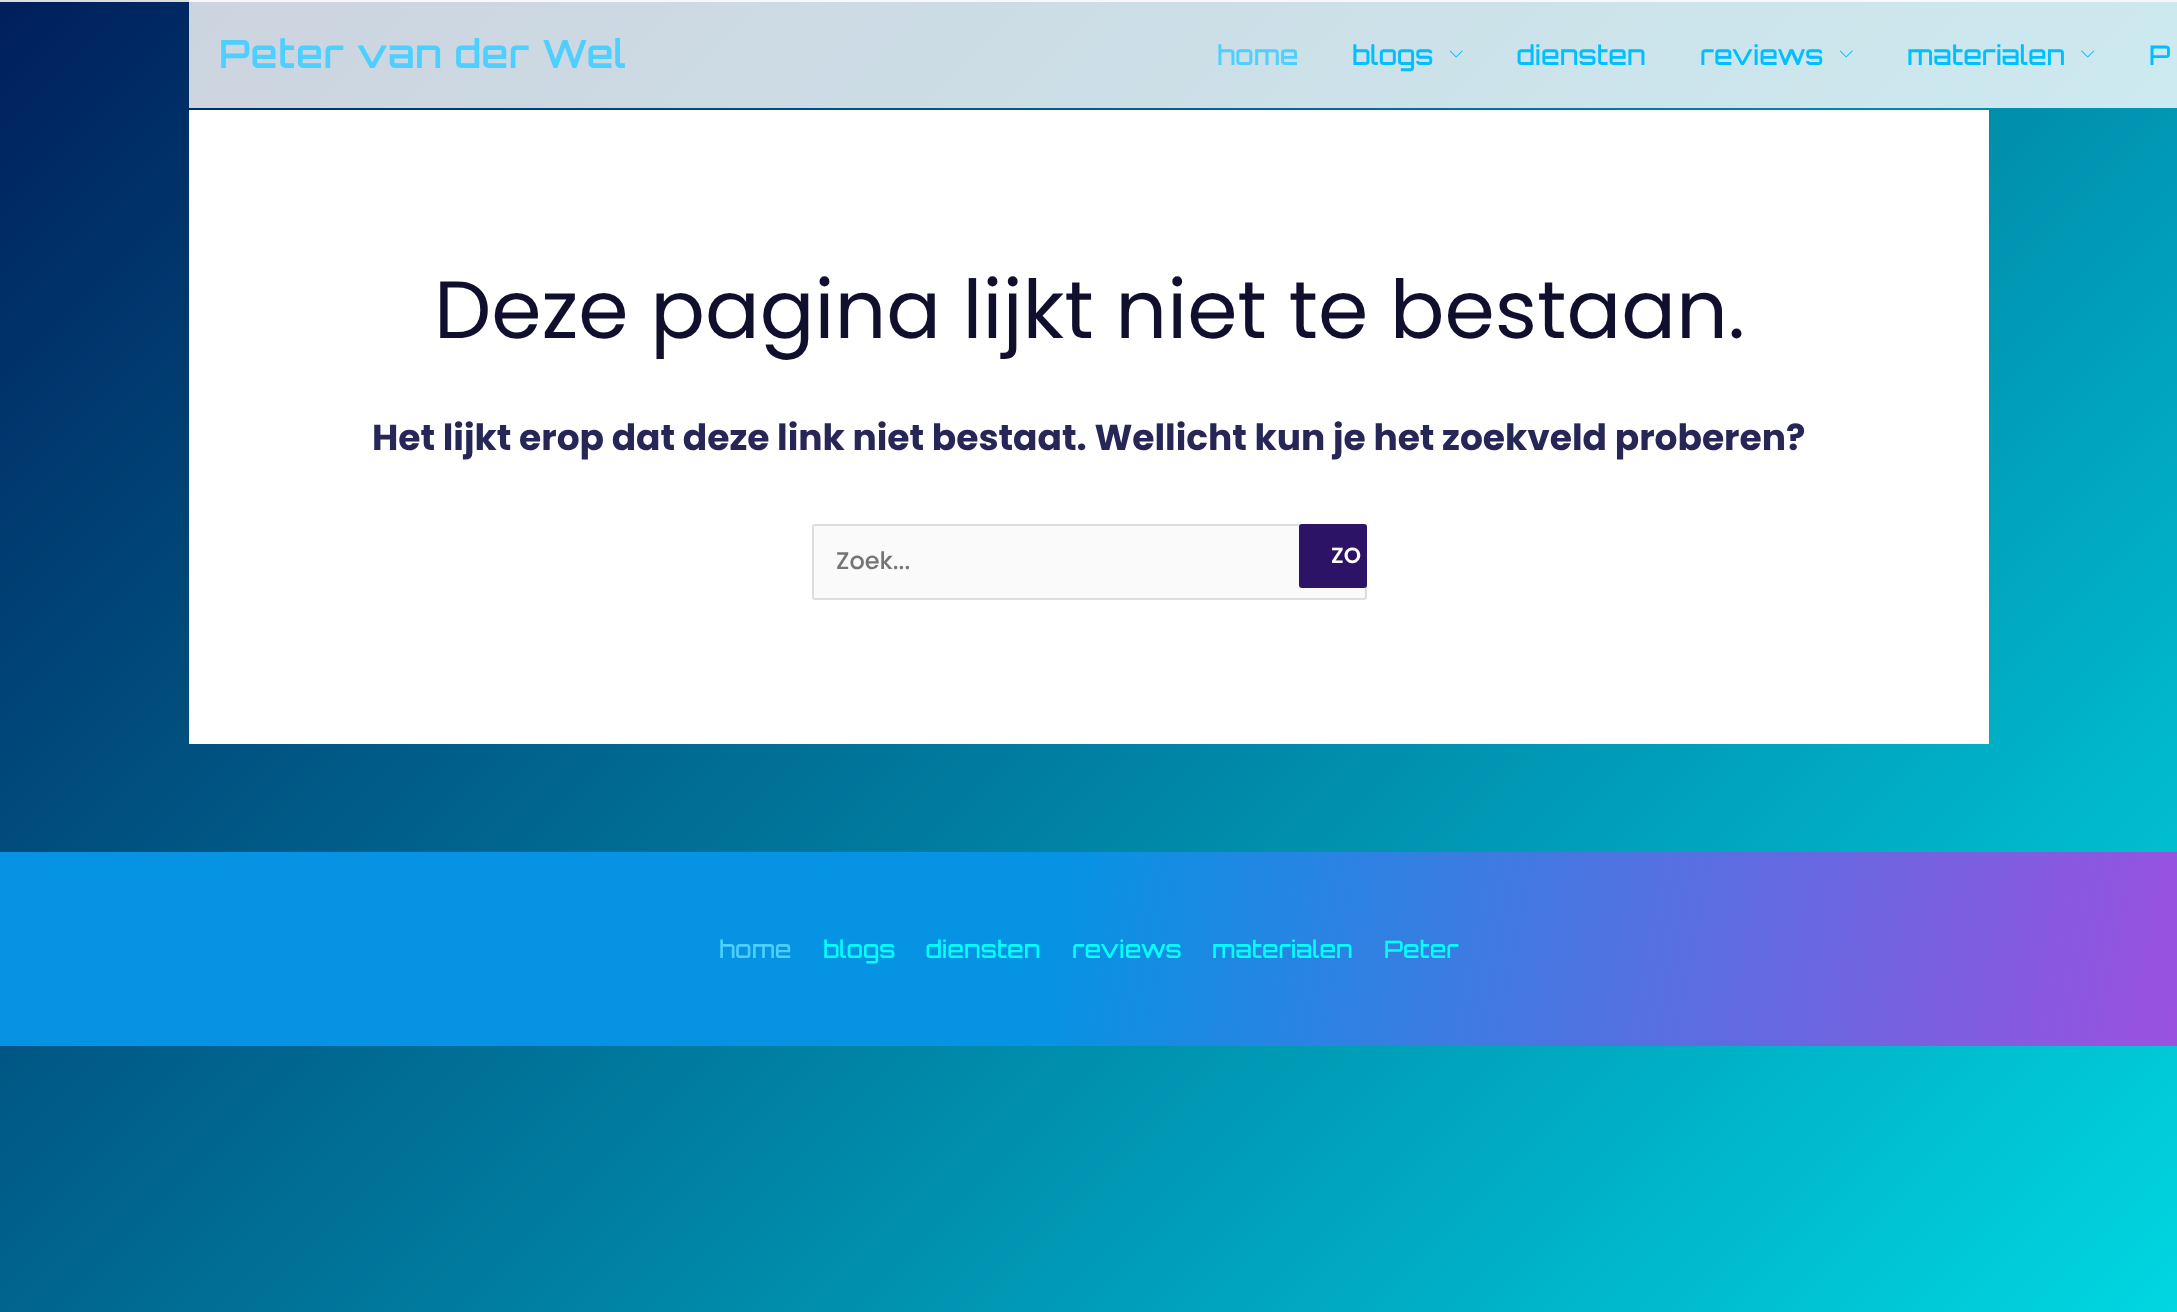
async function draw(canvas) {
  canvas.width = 2177
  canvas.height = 1312
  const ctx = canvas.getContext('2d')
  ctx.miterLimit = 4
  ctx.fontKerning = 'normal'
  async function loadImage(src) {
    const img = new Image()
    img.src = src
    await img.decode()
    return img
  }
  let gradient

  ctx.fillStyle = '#fff'
  ctx.fillRect(0, 0, 2177, 1312)
  gradient = ctx.createLinearGradient(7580, 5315, 1133, -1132)
  gradient.addColorStop(0, '#001f5c')
  gradient.addColorStop(0.33, '#2c1365')
  gradient.addColorStop(0.67, '#0ff')
  gradient.addColorStop(1, '#001f5c')
  ctx.fillStyle = gradient
  ctx.fillRect(0, 2, 2177, 1310)
  gradient = ctx.createLinearGradient(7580, 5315, 1133, -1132)
  gradient.addColorStop(0, '#ccd2de')
  gradient.addColorStop(0.33, '#d5d0e0')
  gradient.addColorStop(0.67, '#cff')
  gradient.addColorStop(1, '#ccd2de')
  ctx.fillStyle = gradient
  ctx.fillRect(189, 2, 1988, 106)
  ctx.fillStyle = '#ddd'
  ctx.fillRect(0, 0, 189, 2)
  ctx.fillStyle = '#f8f8f8'
  ctx.fillRect(189, 0, 1988, 2)
  ctx.letterSpacing = '0.75px'
  ctx.font = '600 39px Orbitron'
  ctx.fillStyle = '#4dd0ff'
  ctx.fillText('Peter van der Wel', 219, 68)
  ctx.letterSpacing = '0px'
  ctx.font = '500 27px Orbitron'
  ctx.fillText('home', 1217, 65)
  ctx.fillStyle = '#00bfff'
  ctx.fillText('blogs', 1352, 65)
  ctx.drawImage(await loadImage('image0.png'), 1449, 50, 14, 8)
  ctx.fillText('diensten', 1517, 65)
  ctx.fillText('reviews', 1700, 65)
  ctx.drawImage(await loadImage('image1.png'), 1839, 50, 14, 8)
  ctx.fillText('materialen', 1907, 65)
  ctx.drawImage(await loadImage('image2.png'), 2081, 50, 14, 8)
  ctx.fillText('P', 2149, 65)
  ctx.fillStyle = '#fff'
  ctx.fillRect(189, 110, 1800, 634)
  ctx.font = '81px Poppins'
  ctx.fillStyle = '#10102e'
  ctx.fillText('Deze pagina lijkt niet te bestaan.', 434, 338)
  ctx.font = 'bold 36px Poppins'
  ctx.fillStyle = '#262657'
  ctx.fillText('Het lijkt erop dat deze link niet bestaat. Wellicht kun je het zoekveld proberen?', 372, 450)
  ctx.fillStyle = '#fafafa'
  ctx.beginPath()
  ctx.roundRect(813, 525, 553, 74, 2)
  ctx.fill()
  ctx.strokeStyle = '#ddd'
  ctx.lineWidth = 2
  ctx.stroke()
  ctx.font = '500 24px Poppins'
  ctx.fillStyle = '#757575'
  ctx.fillText('Zoek...', 836, 569)
  ctx.fillStyle = '#2c1365'
  ctx.beginPath()
  ctx.roundRect(1300, 525, 66, 62, 2)
  ctx.fill()
  ctx.strokeStyle = '#2c1365'
  ctx.stroke()
  ctx.font = '600 22px Poppins'
  ctx.fillStyle = '#fff'
  ctx.fillText('ZO', 1331, 563)
  gradient = ctx.createLinearGradient(22, 741, 2156, 1156)
  gradient.addColorStop(0.48, '#0693e3')
  gradient.addColorStop(1, '#9b51e0')
  ctx.fillStyle = gradient
  ctx.fillRect(0, 852, 2177, 194)
  ctx.font = '500 24px Orbitron'
  ctx.fillStyle = '#4dd0ff'
  ctx.fillText('home', 719, 958)
  ctx.fillStyle = '#0ff'
  ctx.fillText('blogs', 823, 958)
  ctx.fillText('diensten', 926, 958)
  ctx.fillText('reviews', 1072, 958)
  ctx.fillText('materialen', 1212, 958)
  ctx.fillText('Peter', 1384, 958)
}

draw(document.querySelector('canvas'))
